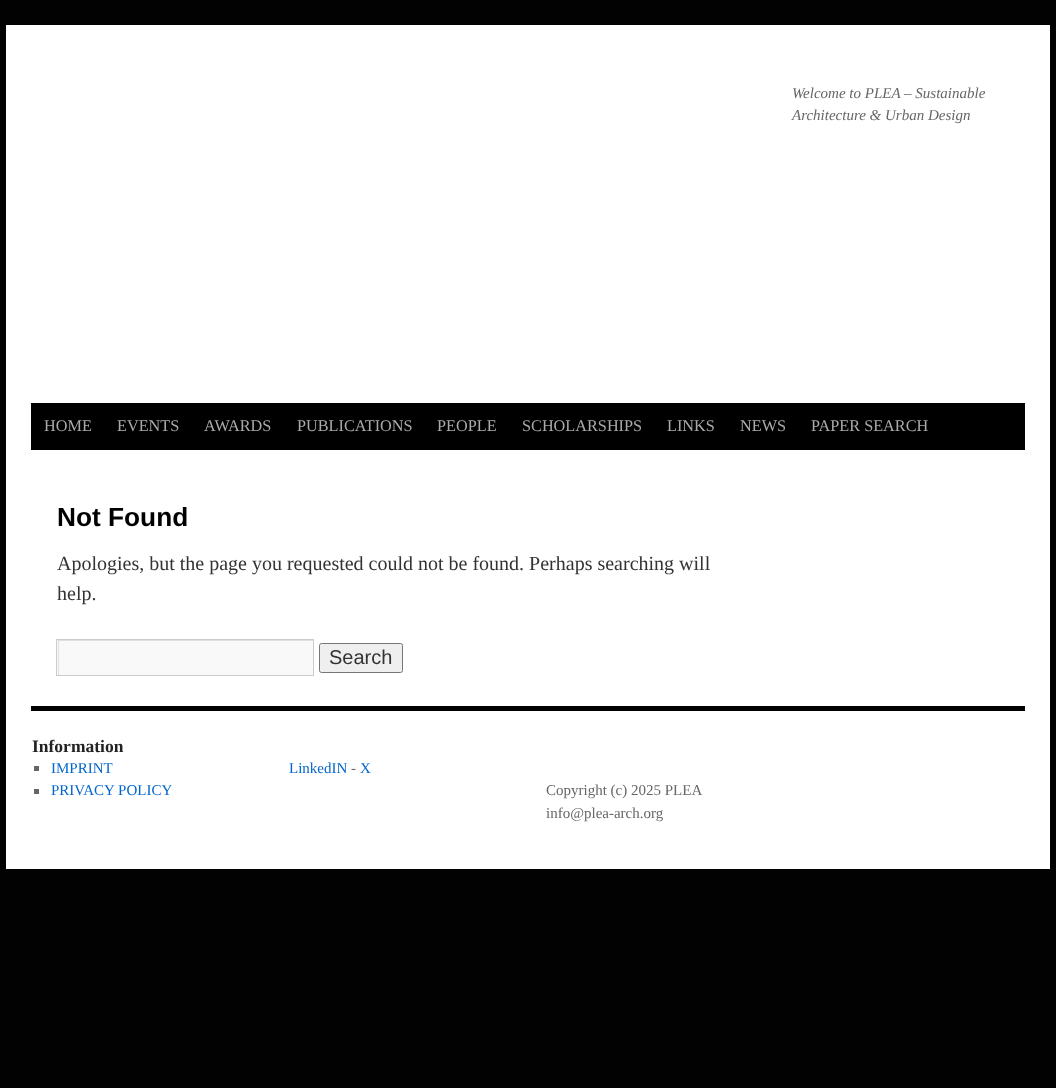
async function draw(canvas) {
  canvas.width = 1056
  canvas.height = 1088
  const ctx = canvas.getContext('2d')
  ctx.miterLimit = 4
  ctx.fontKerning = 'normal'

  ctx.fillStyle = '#020202'
  ctx.fillRect(0, 0, 1056, 1088)
  ctx.fillStyle = '#fff'
  ctx.fillRect(6, 25, 1044, 844)
  ctx.font = 'italic 15px Liberation Serif'
  ctx.fillStyle = '#666'
  ctx.fillText('Welcome to PLEA – Sustainable', 792, 98)
  ctx.fillText('Architecture & Urban Design', 792, 120)
  ctx.fillStyle = '#000'
  ctx.fillRect(31, 403, 994, 47)
  ctx.font = '16.25px Liberation Serif'
  ctx.fillStyle = '#aaa'
  ctx.fillText('HOME', 44, 431)
  ctx.fillText('EVENTS', 117, 431)
  ctx.fillText('AWARDS', 204, 431)
  ctx.fillText('PUBLICATIONS', 297, 431)
  ctx.fillText('PEOPLE', 437, 431)
  ctx.fillText('SCHOLARSHIPS', 522, 431)
  ctx.fillText('LINKS', 667, 431)
  ctx.fillText('NEWS', 740, 431)
  ctx.fillText('PAPER SEARCH', 811, 431)
  ctx.font = 'bold 26.25px Liberation Sans'
  ctx.fillStyle = '#000'
  ctx.fillText('Not Found', 57, 526)
  ctx.font = '20px Liberation Serif'
  ctx.fillStyle = '#333'
  ctx.fillText('Apologies, but the page you requested could not be found. Perhaps searching will', 57, 570)
  ctx.fillText('help.', 57, 600)
  ctx.fillStyle = '#f9f9f9'
  ctx.fillRect(57, 640, 256, 35)
  ctx.save()
  ctx.beginPath()
  ctx.rect(58, 640, 255, 35)
  ctx.clip()
  ctx.fillStyle = '#e0e0e0'
  ctx.beginPath()
  ctx.moveTo(-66, 516)
  ctx.lineTo(436, 516)
  ctx.lineTo(436, 799)
  ctx.lineTo(-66, 799)
  ctx.closePath()
  ctx.moveTo(59, 641)
  ctx.lineTo(314, 641)
  ctx.lineTo(314, 676)
  ctx.lineTo(59, 676)
  ctx.closePath()
  ctx.fill('evenodd')
  ctx.restore()
  ctx.strokeStyle = '#ccc'
  ctx.strokeRect(56.5, 639.5, 257, 36)
  ctx.fillStyle = '#efefef'
  ctx.beginPath()
  ctx.roundRect(319.5, 643.5, 83, 29, 2)
  ctx.fill()
  ctx.strokeStyle = '#767676'
  ctx.stroke()
  ctx.font = '20px Liberation Sans'
  ctx.fillStyle = '#333'
  ctx.fillText('Search', 329, 664)
  ctx.fillStyle = '#000'
  ctx.fillRect(31, 706, 994, 5)
  ctx.font = 'bold 17.5px Liberation Serif'
  ctx.fillStyle = '#222'
  ctx.fillText('Information', 32, 752)
  ctx.fillStyle = '#666'
  ctx.fillRect(34, 766, 5, 5)
  ctx.font = '15px Liberation Serif'
  ctx.fillStyle = '#06c'
  ctx.fillText('IMPRINT', 51, 773)
  ctx.fillStyle = '#666'
  ctx.fillRect(34, 789, 5, 5)
  ctx.fillStyle = '#06c'
  ctx.fillText('PRIVACY POLICY', 51, 795)
  ctx.fillText('LinkedIN', 289, 773)
  ctx.fillStyle = '#666'
  ctx.fillText('-', 351, 773)
  ctx.fillStyle = '#06c'
  ctx.fillText('X', 360, 773)
  ctx.fillStyle = '#666'
  ctx.fillText('Copyright (c) 2025 PLEA', 546, 795)
  ctx.fillText('info@plea-arch.org', 546, 818)
}

draw(document.querySelector('canvas'))
